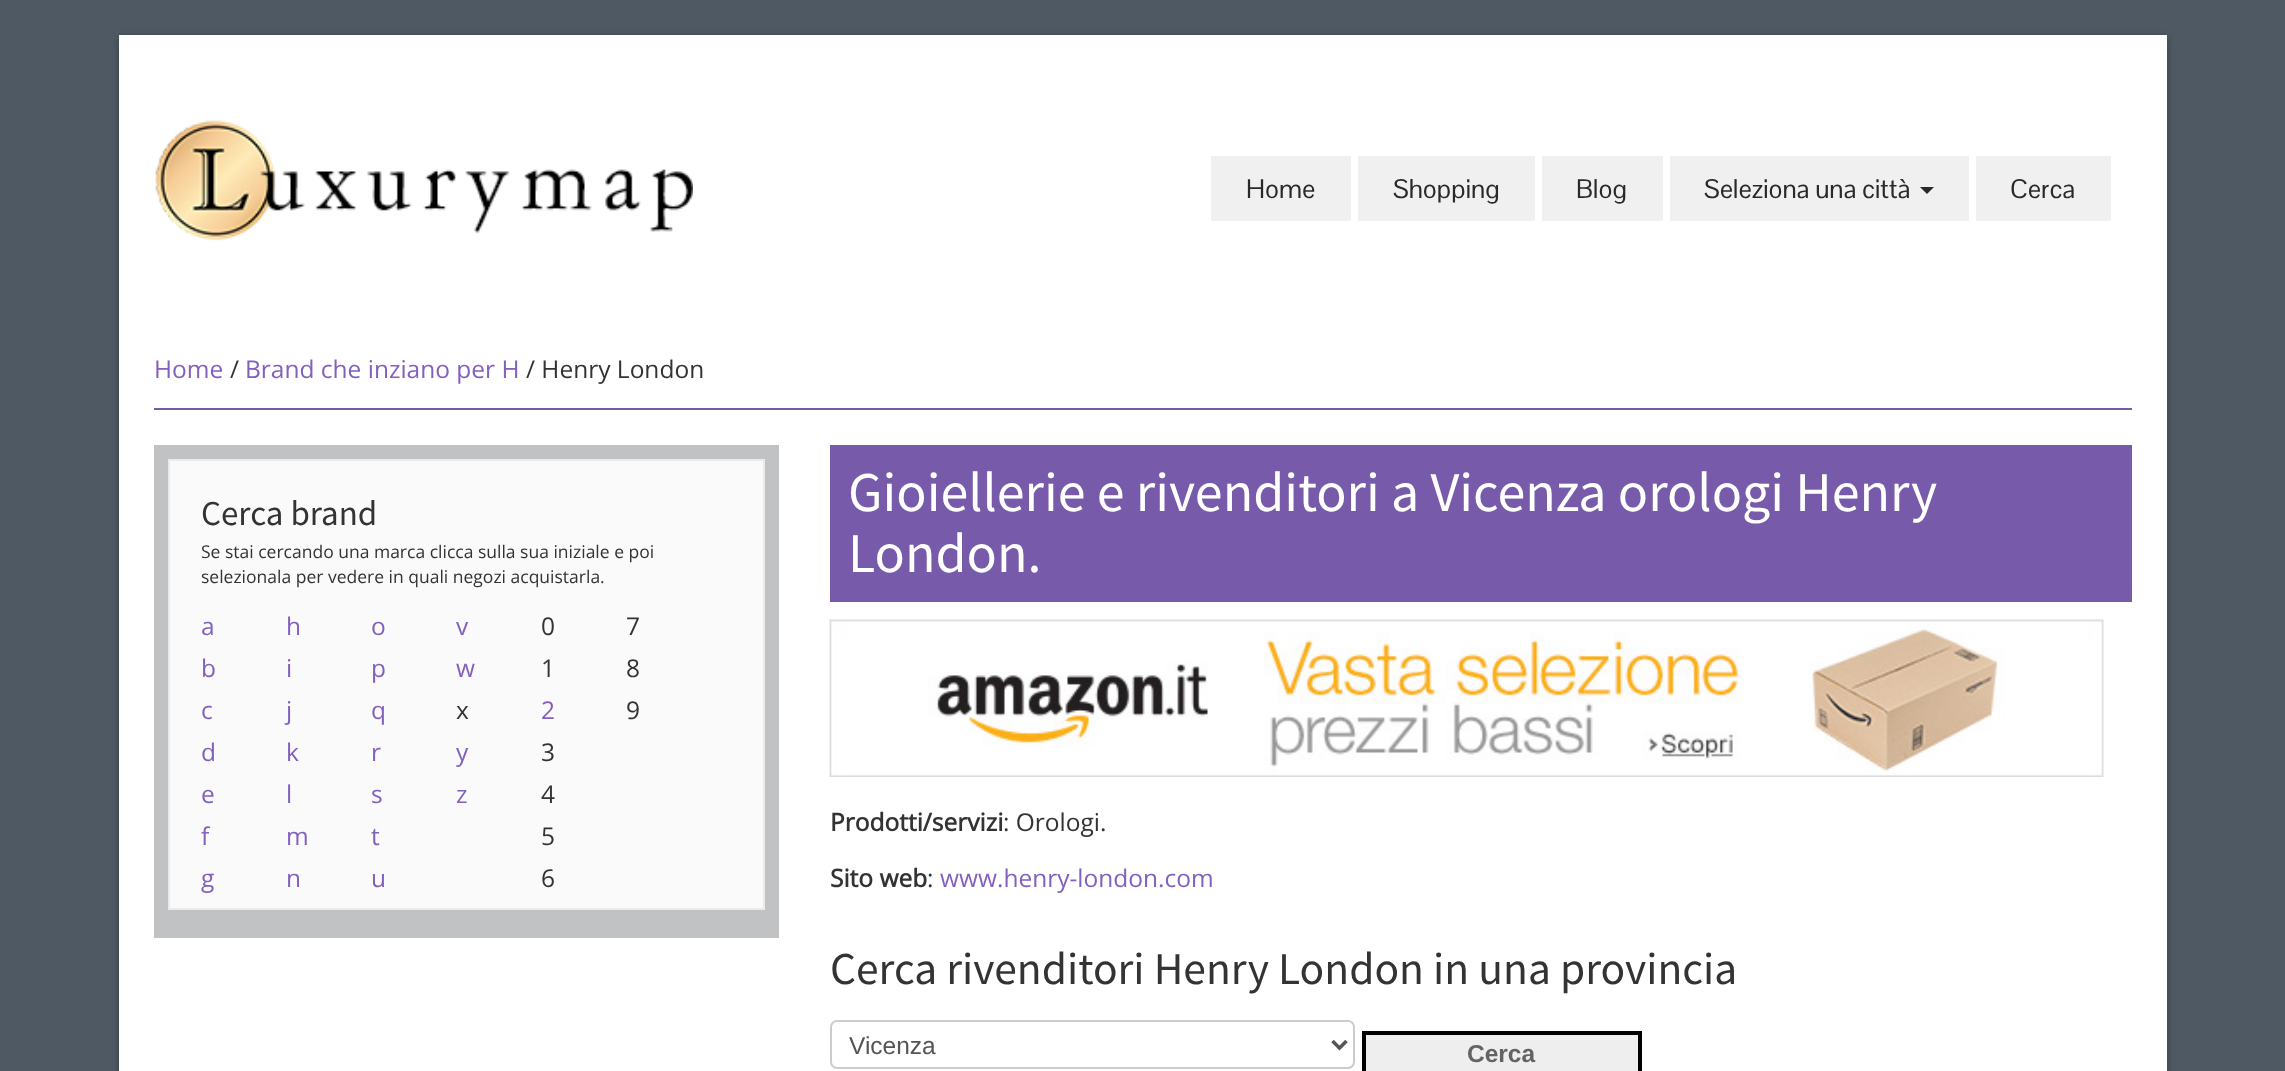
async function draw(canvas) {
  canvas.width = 2285
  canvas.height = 1071
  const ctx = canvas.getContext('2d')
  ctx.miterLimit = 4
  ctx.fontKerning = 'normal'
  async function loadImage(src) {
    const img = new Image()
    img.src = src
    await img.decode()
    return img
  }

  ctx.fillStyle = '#4f5963'
  ctx.fillRect(0, 0, 2285, 1071)
  ctx.fillStyle = '#0000004d'
  ctx.filter = 'blur(3.5px)'
  ctx.beginPath()
  ctx.rect(119, 37, 2048, 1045)
  ctx.fill()
  ctx.filter = 'none'
  ctx.fillStyle = '#fff'
  ctx.fillRect(119, 35, 2048, 1036)
  ctx.drawImage(await loadImage('image0.png'), 155, 120, 538, 121)
  ctx.fillStyle = '#f0f0f0'
  ctx.fillRect(1211, 156, 140, 65)
  ctx.font = '26.25px Pontano Sans'
  ctx.fillStyle = '#292929'
  ctx.fillText('Home', 1246, 198)
  ctx.fillStyle = '#f0f0f0'
  ctx.fillRect(1358, 156, 177, 65)
  ctx.fillStyle = '#292929'
  ctx.fillText('Shopping', 1393, 198)
  ctx.fillStyle = '#f0f0f0'
  ctx.fillRect(1542, 156, 121, 65)
  ctx.fillStyle = '#292929'
  ctx.fillText('Blog', 1576, 198)
  ctx.fillStyle = '#f0f0f0'
  ctx.fillRect(1670, 156, 299, 65)
  ctx.fillStyle = '#292929'
  ctx.fillText('Seleziona una città', 1704, 198)
  ctx.beginPath()
  ctx.moveTo(1920, 187)
  ctx.lineTo(1934, 187)
  ctx.lineTo(1927, 194)
  ctx.closePath()
  ctx.fill()
  ctx.fillStyle = '#f0f0f0'
  ctx.fillRect(1976, 156, 135, 65)
  ctx.fillStyle = '#292929'
  ctx.fillText('Cerca', 2010, 198)
  ctx.fillStyle = '#775aaa'
  ctx.fillRect(154, 408, 1978, 2)
  ctx.font = '24.5px Open Sans'
  ctx.fillStyle = '#8360be'
  ctx.fillText('Home', 154, 378)
  ctx.fillStyle = '#333'
  ctx.fillText('/', 230, 378)
  ctx.fillStyle = '#8360be'
  ctx.fillText('Brand che inziano per H', 245, 378)
  ctx.fillStyle = '#333'
  ctx.fillText('/ Henry London', 526, 378)
  ctx.fillStyle = '#c0c2c4'
  ctx.fillRect(154, 445, 625, 493)
  ctx.fillStyle = '#fafafa'
  ctx.beginPath()
  ctx.rect(169, 460, 595, 449)
  ctx.fill()
  ctx.strokeStyle = '#ebebeb'
  ctx.lineWidth = 2
  ctx.stroke()
  ctx.font = '35px Source Sans Pro'
  ctx.fillStyle = '#333'
  ctx.fillText('Cerca brand', 201, 525)
  ctx.font = '17.5px Open Sans'
  ctx.fillText('Se stai cercando una marca clicca sulla sua iniziale e poi', 201, 558)
  ctx.fillText('selezionala per vedere in quali negozi acquistarla.', 201, 583)
  ctx.font = '24.5px Open Sans'
  ctx.fillStyle = '#8360be'
  ctx.fillText('a', 201, 635)
  ctx.fillText('b', 201, 677)
  ctx.fillText('c', 201, 719)
  ctx.fillText('d', 201, 761)
  ctx.fillText('e', 201, 803)
  ctx.fillText('f', 201, 845)
  ctx.fillText('g', 201, 887)
  ctx.fillText('h', 286, 635)
  ctx.fillText('i', 286, 677)
  ctx.fillText('j', 286, 719)
  ctx.fillText('k', 286, 761)
  ctx.fillText('l', 286, 803)
  ctx.fillText('m', 286, 845)
  ctx.fillText('n', 286, 887)
  ctx.fillText('o', 371, 635)
  ctx.fillText('p', 371, 677)
  ctx.fillText('q', 371, 719)
  ctx.fillText('r', 371, 761)
  ctx.fillText('s', 371, 803)
  ctx.fillText('t', 371, 845)
  ctx.fillText('u', 371, 887)
  ctx.fillText('v', 456, 635)
  ctx.fillText('w', 456, 677)
  ctx.fillStyle = '#333'
  ctx.fillText('x', 456, 719)
  ctx.fillStyle = '#8360be'
  ctx.fillText('y', 456, 761)
  ctx.fillText('z', 456, 803)
  ctx.fillStyle = '#333'
  ctx.fillText('0', 541, 635)
  ctx.fillText('1', 541, 677)
  ctx.fillStyle = '#8360be'
  ctx.fillText('2', 541, 719)
  ctx.fillStyle = '#333'
  ctx.fillText('3', 541, 761)
  ctx.fillText('4', 541, 803)
  ctx.fillText('5', 541, 845)
  ctx.fillText('6', 541, 887)
  ctx.fillText('7', 626, 635)
  ctx.fillText('8', 626, 677)
  ctx.fillText('9', 626, 719)
  ctx.fillStyle = '#775aaa'
  ctx.fillRect(830, 445, 1302, 157)
  ctx.font = '56px Source Sans Pro'
  ctx.fillStyle = '#fff'
  ctx.fillText('Gioiellerie e rivenditori a Vicenza orologi Henry', 848, 511)
  ctx.fillText('London.', 848, 572)
  ctx.drawImage(await loadImage('image1.png'), 829, 619, 1275, 158)
  ctx.font = 'bold 24.5px Open Sans'
  ctx.fillStyle = '#333'
  ctx.fillText('Prodotti/servizi', 830, 831)
  ctx.font = '24.5px Open Sans'
  ctx.fillText(': Orologi.', 1003, 831)
  ctx.font = 'bold 24.5px Open Sans'
  ctx.fillText('Sito web', 830, 887)
  ctx.font = '24.5px Open Sans'
  ctx.fillText(':', 927, 887)
  ctx.fillStyle = '#8360be'
  ctx.fillText('www.henry-london.com', 940, 887)
  ctx.font = '45.5px Source Sans Pro'
  ctx.fillStyle = '#333'
  ctx.fillText('Cerca rivenditori Henry London in una provincia', 830, 984)
  ctx.beginPath()
  ctx.roundRect(831, 1021, 523, 47, 6)
  ctx.strokeStyle = '#ccc'
  ctx.stroke()
  ctx.beginPath()
  ctx.moveTo(1332.5, 1041)
  ctx.lineTo(1339.5, 1048)
  ctx.lineTo(1346.5, 1041)
  ctx.strokeStyle = '#555'
  ctx.lineWidth = 3.5
  ctx.stroke()
  ctx.font = '24.5px Liberation Sans'
  ctx.fillStyle = '#555'
  ctx.fillText('Vicenza', 849, 1054)
  ctx.fillStyle = '#eee'
  ctx.beginPath()
  ctx.rect(1364, 1033, 276, 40)
  ctx.fill()
  ctx.strokeStyle = '#000'
  ctx.lineWidth = 4
  ctx.stroke()
  ctx.font = 'bold 24.5px Liberation Sans'
  ctx.fillStyle = '#636363'
  ctx.fillText('Cerca', 1467, 1062)
}

draw(document.querySelector('canvas'))
